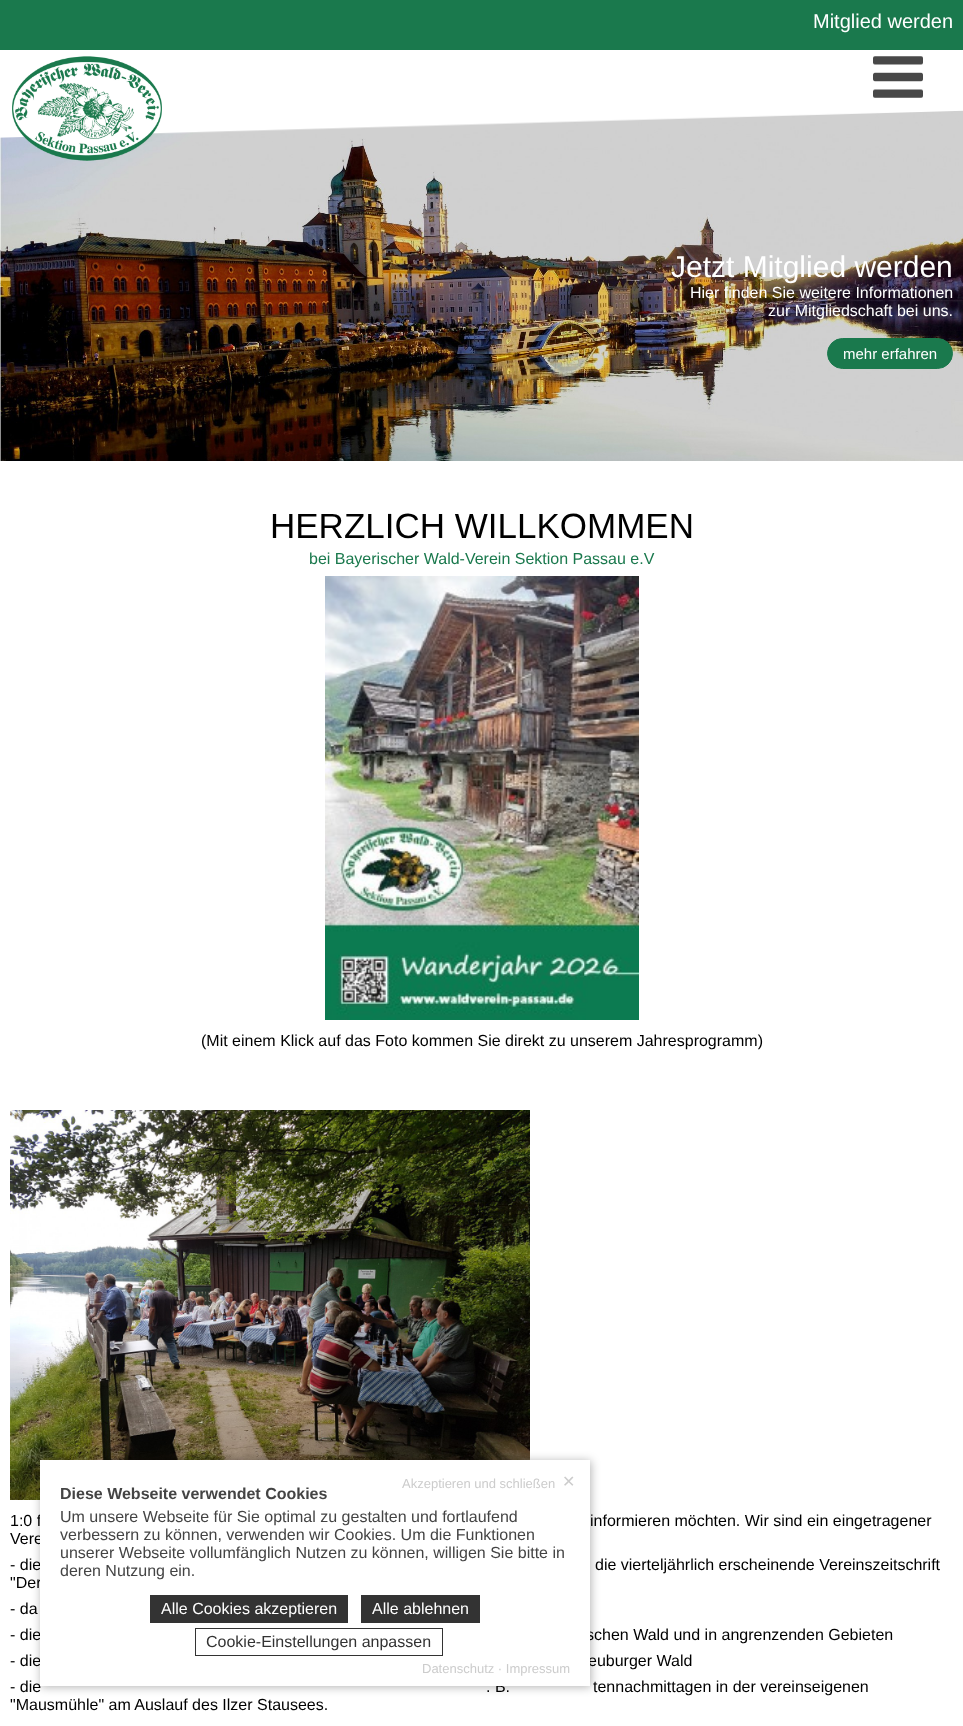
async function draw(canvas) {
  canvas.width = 963
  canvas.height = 1726
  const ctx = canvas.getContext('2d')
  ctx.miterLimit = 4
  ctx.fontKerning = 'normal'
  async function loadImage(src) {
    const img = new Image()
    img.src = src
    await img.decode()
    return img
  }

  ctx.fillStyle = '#fff'
  ctx.fillRect(0, 0, 963, 1726)
  ctx.fillStyle = '#1a794d'
  ctx.fillRect(0, 0, 963, 50)
  ctx.font = '20px Liberation Sans'
  ctx.fillStyle = '#fff'
  ctx.fillText('Mitglied werden', 813, 28)
  ctx.drawImage(await loadImage('image3.png'), 0, 110, 963, 351)
  ctx.drawImage(await loadImage('image2.png'), 0, 110, 963, 28)
  ctx.drawImage(await loadImage('image0.png'), 12, 56, 150, 105)
  ctx.drawImage(await loadImage('image1.png'), 873, 56, 50, 42)
  ctx.font = '30px Liberation Sans'
  ctx.fillText('Jetzt Mitglied werden', 671, 277)
  ctx.font = '16px Liberation Sans'
  ctx.fillText('Hier finden Sie weitere Informationen', 690, 298)
  ctx.fillText('zur Mitgliedschaft bei uns.', 768, 316)
  ctx.fillStyle = '#1a794d'
  ctx.beginPath()
  ctx.roundRect(827.5, 338.5, 125, 30, 15)
  ctx.fill()
  ctx.strokeStyle = '#1a794d'
  ctx.stroke()
  ctx.font = '15px Liberation Sans'
  ctx.fillStyle = '#fff'
  ctx.fillText('mehr erfahren', 843, 359)
  ctx.font = '35px Liberation Sans'
  ctx.fillStyle = '#000'
  ctx.fillText('HERZLICH WILLKOMMEN', 270, 538)
  ctx.font = '16px Liberation Sans'
  ctx.fillStyle = '#1a794d'
  ctx.fillText('bei Bayerischer Wald-Verein Sektion Passau e.V', 309, 564)
  ctx.drawImage(await loadImage('image4.png'), 325, 576, 314, 444)
  ctx.fillStyle = '#000'
  ctx.fillText('(Mit einem Klick auf das Foto kommen Sie direkt zu unserem Jahresprogramm)', 201, 1046)
  ctx.drawImage(await loadImage('image5.png'), 10, 1110, 520, 390)
  ctx.fillText('1:0 f', 10, 1526)
  ctx.fillText('informieren möchten. Wir sind ein eingetragener', 590, 1526)
  ctx.fillText('Vere', 10, 1544)
  ctx.fillText('- die', 10, 1570)
  ctx.fillText('die vierteljährlich erscheinende Vereinszeitschrift', 595, 1570)
  ctx.fillText('"Der', 10, 1588)
  ctx.fillText('- da', 10, 1614)
  ctx.fillText('- die', 10, 1640)
  ctx.fillText('schen Wald und in angrenzenden Gebieten', 586, 1640)
  ctx.fillText('- die', 10, 1666)
  ctx.fillText('euburger Wald', 588, 1666)
  ctx.fillText('- die', 10, 1692)
  ctx.fillText('. B.', 486, 1692)
  ctx.fillText('tennachmittagen in der vereinseigenen', 593, 1692)
  ctx.fillText('"Mausmühle" am Auslauf des Ilzer Stausees.', 10, 1710)
  ctx.fillStyle = '#0000004d'
  ctx.filter = 'blur(5px)'
  ctx.beginPath()
  ctx.rect(41, 1461, 550, 226)
  ctx.fill()
  ctx.filter = 'none'
  ctx.fillStyle = '#fff'
  ctx.fillRect(40, 1460, 550, 226)
  ctx.font = '13px Liberation Sans'
  ctx.fillStyle = '#ccc'
  ctx.fillText('Akzeptieren und schließen', 402, 1488)
  ctx.font = '16px DejaVu Sans'
  ctx.fillText('✕', 562, 1487)
  ctx.font = 'bold 16px Liberation Sans'
  ctx.fillStyle = '#444'
  ctx.fillText('Diese Webseite verwendet Cookies', 60, 1499)
  ctx.font = '16px Liberation Sans'
  ctx.fillText('Um unsere Webseite für Sie optimal zu gestalten und fortlaufend', 60, 1522)
  ctx.fillText('verbessern zu können, verwenden wir Cookies. Um die Funktionen', 60, 1540)
  ctx.fillText('unserer Webseite vollumfänglich Nutzen zu können, willigen Sie bitte in', 60, 1558)
  ctx.fillText('deren Nutzung ein.', 60, 1576)
  ctx.fillStyle = '#333'
  ctx.fillRect(150, 1595, 198, 28)
  ctx.fillStyle = '#fff'
  ctx.fillText('Alle Cookies akzeptieren', 161, 1614)
  ctx.fillStyle = '#333'
  ctx.fillRect(361, 1595, 119, 28)
  ctx.fillStyle = '#fff'
  ctx.fillText('Alle ablehnen', 372, 1614)
  ctx.strokeStyle = '#333'
  ctx.strokeRect(195.5, 1628.5, 247, 27)
  ctx.fillStyle = '#333'
  ctx.fillText('Cookie-Einstellungen anpassen', 206, 1647)
  ctx.font = '13px Liberation Sans'
  ctx.fillStyle = '#ccc'
  ctx.fillText('Datenschutz · Impressum', 422, 1673)
}

draw(document.querySelector('canvas'))
